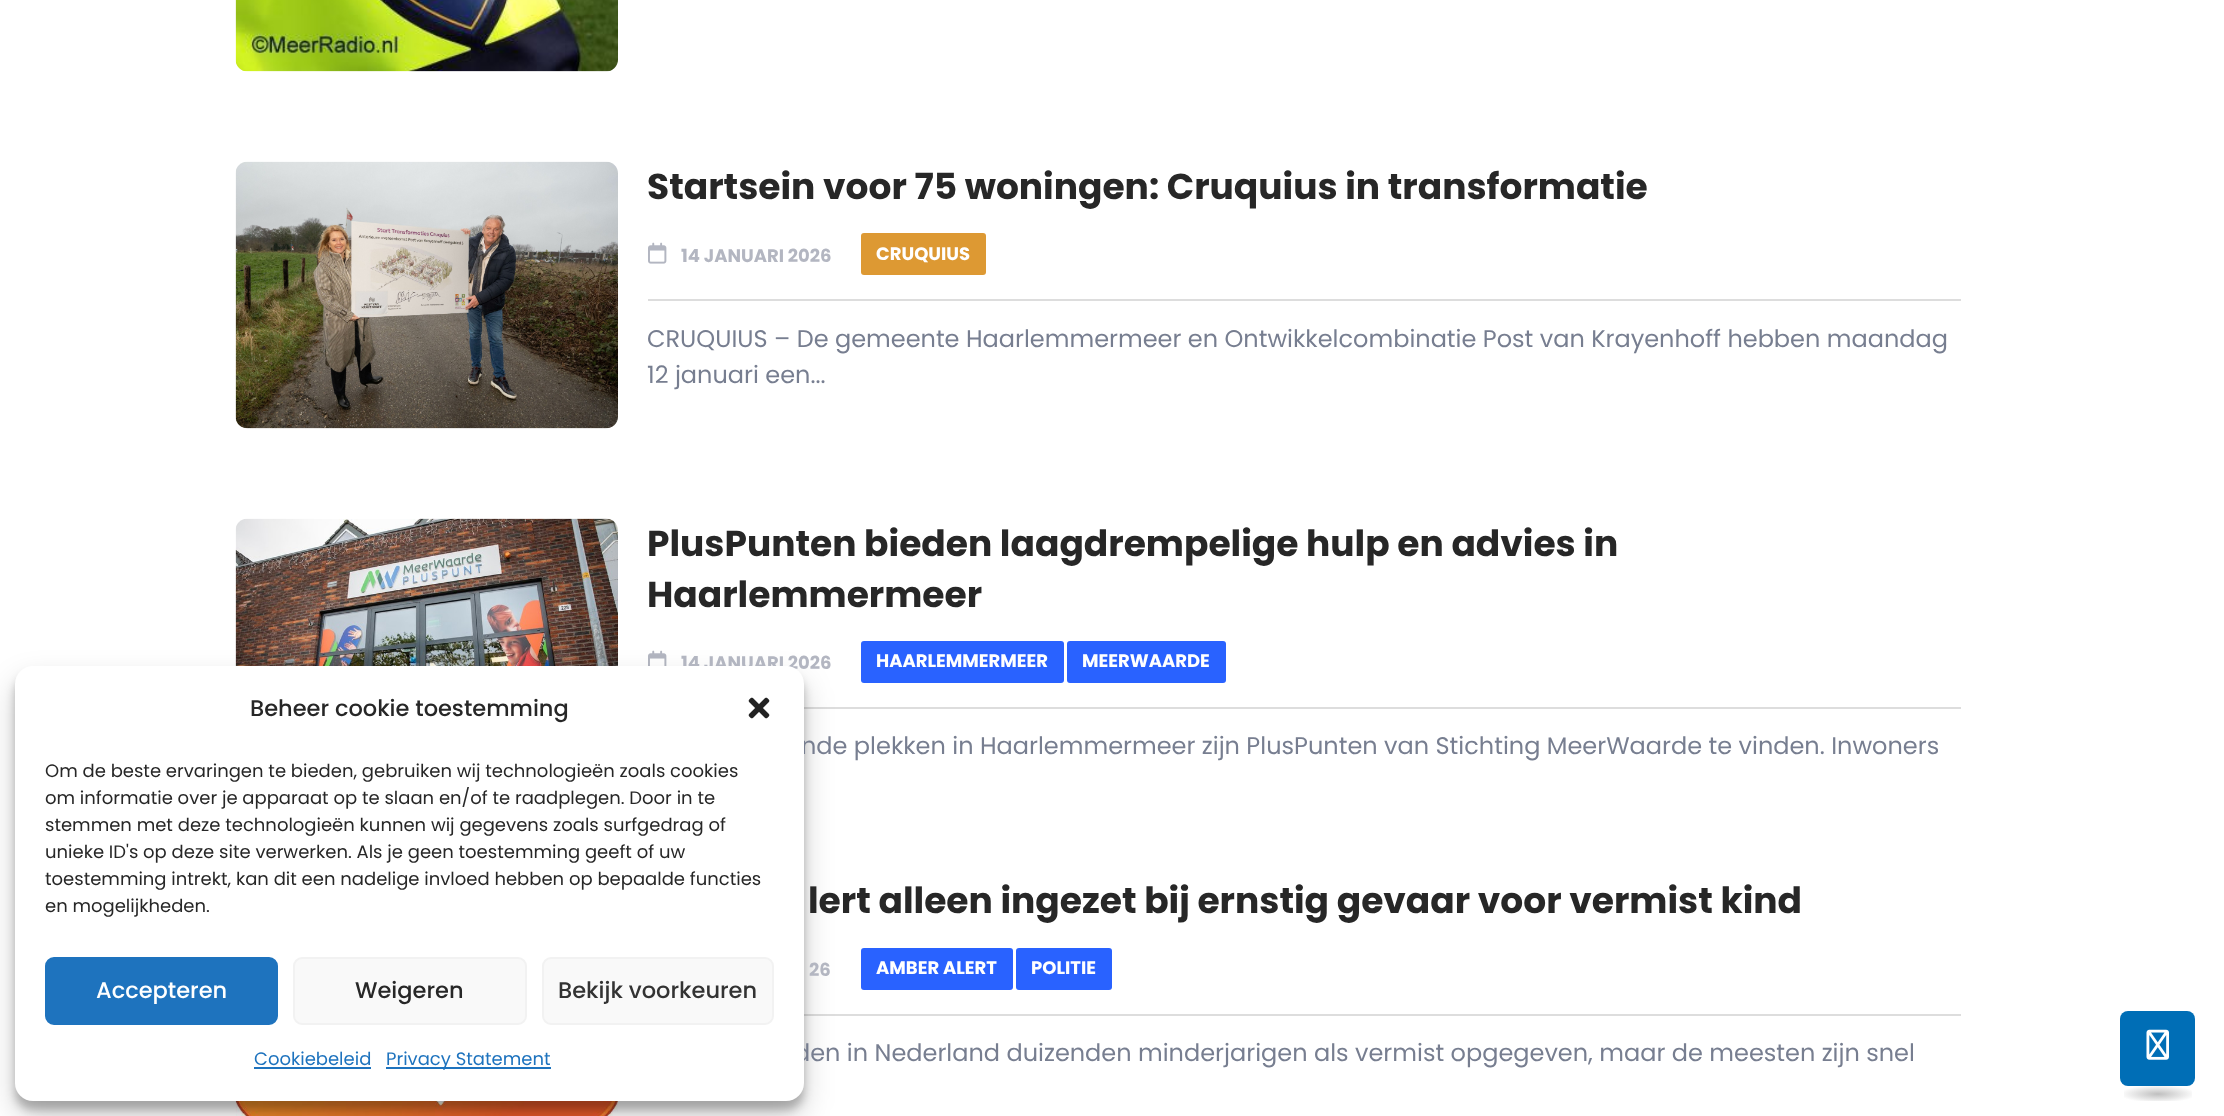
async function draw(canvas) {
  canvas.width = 2224
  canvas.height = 1116
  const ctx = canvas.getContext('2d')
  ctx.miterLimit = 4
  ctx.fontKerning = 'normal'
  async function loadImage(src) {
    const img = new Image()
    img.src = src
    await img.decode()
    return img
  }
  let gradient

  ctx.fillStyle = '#fff'
  ctx.fillRect(0, 0, 2224, 1116)
  ctx.drawImage(await loadImage('image4.png'), 235, 518, 383, 148)
  ctx.fillStyle = '#ddd'
  ctx.fillRect(804, 707, 1157, 2)
  ctx.drawImage(await loadImage('image5.png'), 648, 650, 19, 16)
  ctx.fillRect(804, 1014, 1157, 2)
  ctx.drawImage(await loadImage('image6.png'), 235, 1101, 383, 15)
  ctx.fillStyle = '#0000003b'
  ctx.filter = 'blur(4.5px)'
  ctx.beginPath()
  ctx.roundRect(15, 675, 789, 435, 18)
  ctx.fill()
  ctx.filter = 'none'
  ctx.fillStyle = '#00000030'
  ctx.filter = 'blur(15px)'
  ctx.beginPath()
  ctx.roundRect(15, 681, 789, 435, 18)
  ctx.fill()
  ctx.filter = 'none'
  ctx.font = 'bold 18px Poppins'
  ctx.fillStyle = '#b3b6c1'
  ctx.fillText('14 JANUARI 2026', 681, 669)
  ctx.font = '24px Poppins'
  ctx.fillStyle = '#777e90'
  ctx.fillText('nde plekken in Haarlemmermeer zijn PlusPunten van Stichting MeerWaarde te vinden. Inwoners', 801, 754)
  ctx.fillText('den in Nederland duizenden minderjarigen als vermist opgegeven, maar de meesten zijn snel', 794, 1061)
  ctx.fillStyle = '#fff'
  ctx.beginPath()
  ctx.roundRect(15, 666, 789, 435, 18)
  ctx.fill()
  ctx.font = '500 22.5px Poppins'
  ctx.fillStyle = '#272727'
  ctx.fillText('Beheer cookie toestemming', 250, 716)
  ctx.drawImage(await loadImage('image0.png'), 748, 697, 22, 22)
  ctx.font = '18px Poppins'
  ctx.fillText('Om de beste ervaringen te bieden, gebruiken wij technologieën zoals cookies', 45, 777)
  ctx.fillText('om informatie over je apparaat op te slaan en/of te raadplegen. Door in te', 45, 804)
  ctx.fillText('stemmen met deze technologieën kunnen wij gegevens zoals surfgedrag of', 45, 831)
  ctx.fillText('unieke ID\'s op deze site verwerken. Als je geen toestemming geeft of uw', 45, 858)
  ctx.fillText('toestemming intrekt, kan dit een nadelige invloed hebben op bepaalde functies', 45, 885)
  ctx.fillText('en mogelijkheden.', 45, 912)
  ctx.fillStyle = '#1e73be'
  ctx.beginPath()
  ctx.roundRect(46, 958, 231, 66, 8)
  ctx.fill()
  ctx.strokeStyle = '#1e73be'
  ctx.lineWidth = 2
  ctx.stroke()
  ctx.font = '500 22.5px Poppins'
  ctx.fillStyle = '#fff'
  ctx.fillText('Accepteren', 96, 998)
  ctx.fillStyle = '#f9f9f9'
  ctx.beginPath()
  ctx.roundRect(294, 958, 232, 66, 8)
  ctx.fill()
  ctx.strokeStyle = '#f2f2f2'
  ctx.stroke()
  ctx.fillStyle = '#272727'
  ctx.fillText('Weigeren', 355, 998)
  ctx.fillStyle = '#f9f9f9'
  ctx.beginPath()
  ctx.roundRect(543, 958, 230, 66, 8)
  ctx.fill()
  ctx.stroke()
  ctx.fillStyle = '#333'
  ctx.fillText('Bekijk voorkeuren', 558, 998)
  ctx.font = '18px Poppins'
  ctx.fillStyle = '#1e73be'
  ctx.fillText('Cookiebeleid', 254, 1065)
  ctx.fillRect(254, 1067, 117, 2)
  ctx.fillRect(386, 1067, 165, 2)
  ctx.fillText('Privacy Statement', 386, 1065)
  ctx.drawImage(await loadImage('image1.png'), 235, 0, 383, 72)
  ctx.drawImage(await loadImage('image2.png'), 235, 161, 383, 268)
  ctx.font = 'bold 36px Poppins'
  ctx.fillStyle = '#272727'
  ctx.fillText('Startsein voor 75 woningen: Cruquius in transformatie', 647, 199)
  ctx.fillStyle = '#ddd'
  ctx.fillRect(648, 299, 1313, 2)
  ctx.drawImage(await loadImage('image3.png'), 648, 242, 19, 22)
  ctx.font = 'bold 18px Poppins'
  ctx.fillStyle = '#b3b6c1'
  ctx.fillText('14 JANUARI 2026', 681, 262)
  ctx.fillStyle = '#d93'
  ctx.beginPath()
  ctx.roundRect(861, 233, 125, 42, 3)
  ctx.fill()
  ctx.fillStyle = '#fff'
  ctx.fillText('CRUQUIUS', 876, 260)
  ctx.font = '24px Poppins'
  ctx.fillStyle = '#777e90'
  ctx.fillText('CRUQUIUS – De gemeente Haarlemmermeer en Ontwikkelcombinatie Post van Krayenhoff hebben maandag', 647, 347)
  ctx.fillText('12 januari een...', 647, 383)
  ctx.font = 'bold 36px Poppins'
  ctx.fillStyle = '#272727'
  ctx.fillText('PlusPunten bieden laagdrempelige hulp en advies in', 647, 556)
  ctx.fillText('Haarlemmermeer', 647, 607)
  ctx.fillStyle = '#2962ff'
  ctx.beginPath()
  ctx.roundRect(861, 641, 203, 42, 3)
  ctx.fill()
  ctx.font = 'bold 18px Poppins'
  ctx.fillStyle = '#fff'
  ctx.fillText('HAARLEMMERMEER', 876, 667)
  ctx.fillStyle = '#2962ff'
  ctx.beginPath()
  ctx.roundRect(1067, 641, 159, 42, 3)
  ctx.fill()
  ctx.fillStyle = '#fff'
  ctx.fillText('MEERWAARDE', 1082, 667)
  ctx.font = 'bold 36px Poppins'
  ctx.fillStyle = '#272727'
  ctx.fillText('lert alleen ingezet bij ernstig gevaar voor vermist kind', 808, 913)
  ctx.font = 'bold 18px Poppins'
  ctx.fillStyle = '#b3b6c1'
  ctx.fillText('26', 809, 976)
  ctx.fillStyle = '#2962ff'
  ctx.beginPath()
  ctx.roundRect(861, 948, 152, 42, 3)
  ctx.fill()
  ctx.fillStyle = '#fff'
  ctx.fillText('AMBER ALERT', 876, 974)
  ctx.fillStyle = '#2962ff'
  ctx.beginPath()
  ctx.roundRect(1016, 948, 96, 42, 3)
  ctx.fill()
  ctx.fillStyle = '#fff'
  ctx.fillText('POLITIE', 1031, 974)
  ctx.fillStyle = '#006eb6'
  ctx.beginPath()
  ctx.roundRect(2120, 1011, 75, 75, 8)
  ctx.fill()
  ctx.drawImage(await loadImage('image7.png'), 2146, 1029, 23, 31)
  gradient = ctx.createRadialGradient(2158, 4773.82, 0, 2158, 4773.82, 48)
  gradient.addColorStop(0, '#bfbfbf')
  gradient.addColorStop(0.8, '#fff')
  ctx.fillStyle = gradient
  ctx.beginPath()
  ctx.rect(2124, 1086, 68, 15)
  ctx.save()
  ctx.clip()
  ctx.scale(1, 11 / 48)
  ctx.fillRect(0, 0, 2224, 4870)
  ctx.restore()
}

draw(document.querySelector('canvas'))
